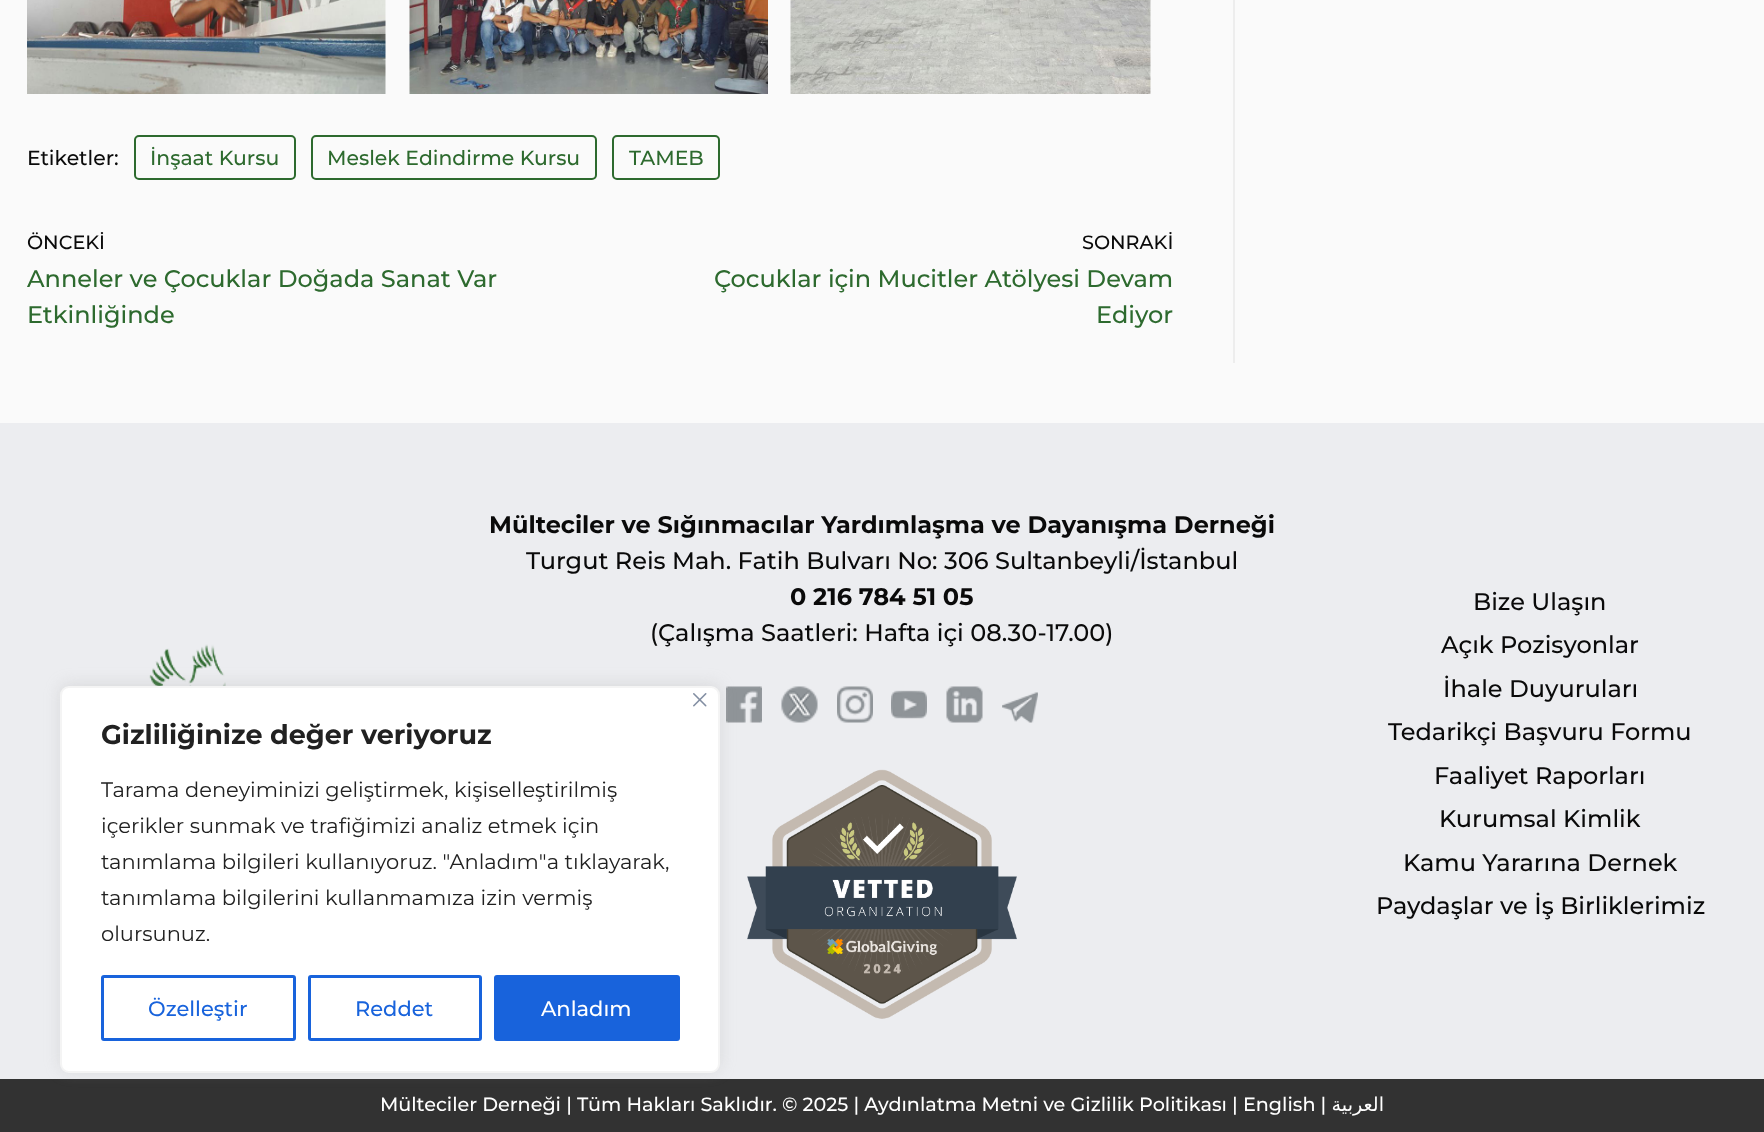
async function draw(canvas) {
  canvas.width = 1764
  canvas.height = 1132
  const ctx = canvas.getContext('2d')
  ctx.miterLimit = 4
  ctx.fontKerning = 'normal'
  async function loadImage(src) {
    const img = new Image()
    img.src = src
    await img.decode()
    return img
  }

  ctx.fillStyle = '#fafafa'
  ctx.fillRect(0, 0, 1764, 1132)
  ctx.drawImage(await loadImage('image0.png'), 27, 0, 359, 94)
  ctx.drawImage(await loadImage('image1.png'), 409, 0, 359, 94)
  ctx.drawImage(await loadImage('image2.png'), 790, 0, 361, 94)
  ctx.font = '500 20.4px Montserrat'
  ctx.fillStyle = '#0a0a0a'
  ctx.fillText('Etiketler:', 27, 165)
  ctx.beginPath()
  ctx.roundRect(135, 136, 160, 43, 4)
  ctx.strokeStyle = '#2d6a2e'
  ctx.lineWidth = 2
  ctx.stroke()
  ctx.fillStyle = '#2d6a2e'
  ctx.fillText('İnşaat Kursu', 150, 165)
  ctx.beginPath()
  ctx.roundRect(312, 136, 284, 43, 4)
  ctx.stroke()
  ctx.fillText('Meslek Edindirme Kursu', 327, 165)
  ctx.beginPath()
  ctx.roundRect(613, 136, 106, 43, 4)
  ctx.stroke()
  ctx.fillText('TAMEB', 629, 165)
  ctx.font = '500 19.2px Montserrat'
  ctx.fillStyle = '#0a0a0a'
  ctx.fillText('ÖNCEKİ', 27, 249)
  ctx.font = '500 24px Montserrat'
  ctx.fillStyle = '#2d6a2e'
  ctx.fillText('Anneler ve Çocuklar Doğada Sanat Var', 27, 287)
  ctx.fillText('Etkinliğinde', 27, 323)
  ctx.font = '500 19.2px Montserrat'
  ctx.fillStyle = '#0a0a0a'
  ctx.fillText('SONRAKİ', 1082, 249)
  ctx.font = '500 24px Montserrat'
  ctx.fillStyle = '#2d6a2e'
  ctx.fillText('Çocuklar için Mucitler Atölyesi Devam', 714, 287)
  ctx.fillText('Ediyor', 1096, 323)
  ctx.fillStyle = '#ededed'
  ctx.fillRect(1233, 0, 2, 363)
  ctx.fillStyle = '#ecedf0'
  ctx.fillRect(0, 423, 1764, 656)
  ctx.drawImage(await loadImage('image3.png'), 149, 644, 77, 42)
  ctx.font = 'bold 24px Montserrat'
  ctx.fillStyle = '#0a0a0a'
  ctx.fillText('Mülteciler ve Sığınmacılar Yardımlaşma ve Dayanışma Derneği', 489, 533)
  ctx.font = '500 24px Montserrat'
  ctx.fillText('Turgut Reis Mah. Fatih Bulvarı No: 306 Sultanbeyli/İstanbul', 526, 569)
  ctx.font = 'bold 24px Montserrat'
  ctx.fillText('0 216 784 51 05', 790, 605)
  ctx.font = '500 24px Montserrat'
  ctx.fillText('(Çalışma Saatleri: Hafta içi 08.30-17.00)', 650, 641)
  ctx.drawImage(await loadImage('image4.png'), 726, 686, 36, 37)
  ctx.drawImage(await loadImage('image5.png'), 781, 686, 37, 37)
  ctx.drawImage(await loadImage('image6.png'), 837, 686, 36, 37)
  ctx.drawImage(await loadImage('image7.png'), 891, 690, 36, 29)
  ctx.drawImage(await loadImage('image8.png'), 946, 686, 37, 37)
  ctx.drawImage(await loadImage('image9.png'), 1002, 692, 36, 31)
  ctx.drawImage(await loadImage('image10.png'), 747, 769, 270, 250)
  ctx.fillText('Bize Ulaşın', 1473, 610)
  ctx.fillText('Açık Pozisyonlar', 1441, 653)
  ctx.fillText('İhale Duyuruları', 1443, 697)
  ctx.fillText('Tedarikçi Başvuru Formu', 1388, 740)
  ctx.fillText('Faaliyet Raporları', 1434, 784)
  ctx.fillText('Kurumsal Kimlik', 1439, 827)
  ctx.fillText('Kamu Yararına Dernek', 1403, 871)
  ctx.fillText('Paydaşlar ve İş Birliklerimiz', 1376, 914)
  ctx.fillStyle = '#323232'
  ctx.fillRect(0, 1079, 1764, 53)
  ctx.font = '500 19.2px Montserrat'
  ctx.fillStyle = '#fff'
  ctx.fillText('Mülteciler Derneği | Tüm Hakları Saklıdır. © 2025 | Aydınlatma Metni ve Gizlilik Politikası | English |', 380, 1111)
  ctx.direction = 'rtl'
  ctx.font = '19.2px DejaVu Sans'
  ctx.fillText('العربية', 1384, 1111)
  ctx.fillStyle = '#acabab4d'
  ctx.filter = 'blur(7.5px)'
  ctx.beginPath()
  ctx.roundRect(60, 684, 660, 387, 9)
  ctx.fill()
  ctx.filter = 'none'
  ctx.fillStyle = '#fff'
  ctx.beginPath()
  ctx.roundRect(61, 687, 658, 385, 8)
  ctx.fill()
  ctx.strokeStyle = '#f4f4f4'
  ctx.stroke()
  ctx.drawImage(await loadImage('image11.png'), 693, 693, 14, 14)
  ctx.direction = 'ltr'
  ctx.font = 'bold 27px Montserrat'
  ctx.fillStyle = '#212121'
  ctx.fillText('Gizliliğinize değer veriyoruz', 101, 744)
  ctx.font = '21px Montserrat'
  ctx.fillText('Tarama deneyiminizi geliştirmek, kişiselleştirilmiş', 101, 797)
  ctx.fillText('içerikler sunmak ve trafiğimizi analiz etmek için', 101, 833)
  ctx.fillText('tanımlama bilgileri kullanıyoruz. "Anladım"a tıklayarak,', 101, 869)
  ctx.fillText('tanımlama bilgilerini kullanmamıza izin vermiş', 101, 905)
  ctx.fillText('olursunuz.', 101, 941)
  ctx.beginPath()
  ctx.roundRect(102.5, 976.5, 192, 63, 1.5)
  ctx.strokeStyle = '#1863dc'
  ctx.lineWidth = 3
  ctx.stroke()
  ctx.font = '500 21px Montserrat'
  ctx.fillStyle = '#1863dc'
  ctx.fillText('Özelleştir', 148, 1016)
  ctx.beginPath()
  ctx.roundRect(309.5, 976.5, 171, 63, 1.5)
  ctx.stroke()
  ctx.fillText('Reddet', 355, 1016)
  ctx.beginPath()
  ctx.roundRect(495.5, 976.5, 183, 63, 1.5)
  ctx.fill()
  ctx.stroke()
  ctx.fillStyle = '#fff'
  ctx.fillText('Anladım', 541, 1016)
}

draw(document.querySelector('canvas'))
